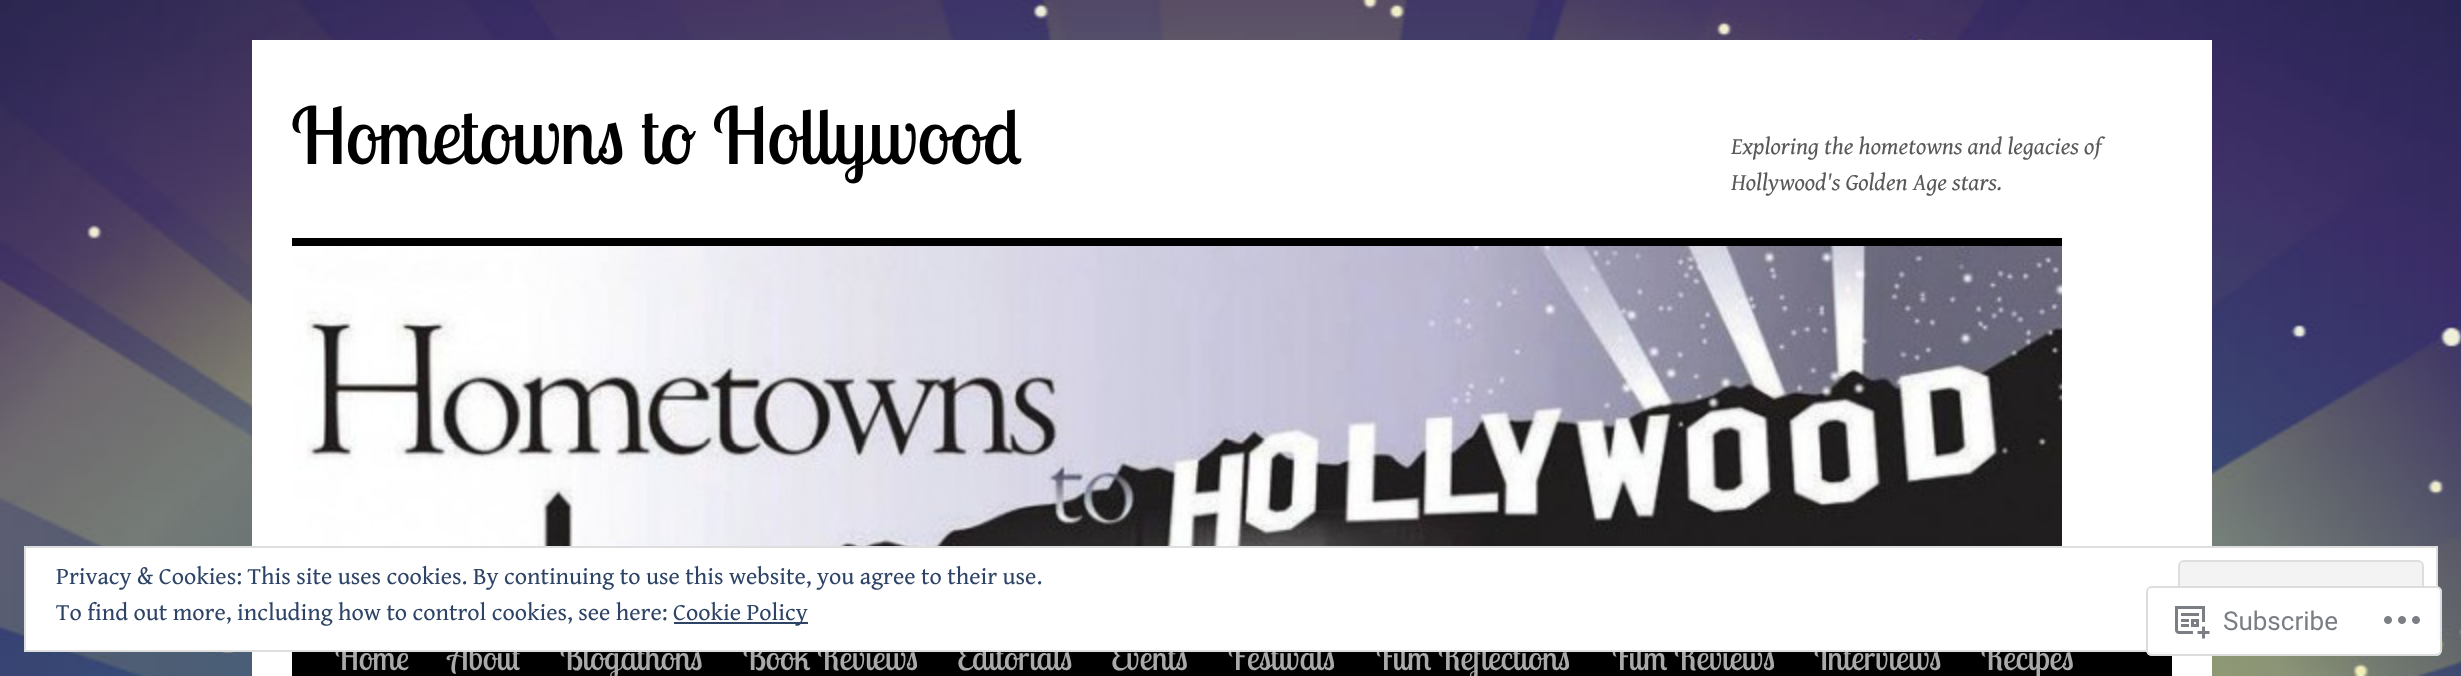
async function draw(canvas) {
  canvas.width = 2461
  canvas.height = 676
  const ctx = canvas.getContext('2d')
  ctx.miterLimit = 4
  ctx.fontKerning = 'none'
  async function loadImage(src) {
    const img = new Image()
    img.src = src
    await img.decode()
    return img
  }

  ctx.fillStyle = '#fff'
  ctx.fillRect(0, 0, 2461, 676)
  ctx.drawImage(await loadImage('image0.png'), 0, 0, 2461, 676)
  ctx.fillRect(252, 40, 1960, 636)
  ctx.font = '78px Lobster Two'
  ctx.fillStyle = '#000'
  ctx.fillText('Hometowns to Hollywood', 291, 164)
  ctx.font = 'italic 24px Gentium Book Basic'
  ctx.fillStyle = '#595959'
  ctx.fillText('Exploring the hometowns and legacies of', 1731, 154)
  ctx.fillText('Hollywood\'s Golden Age stars.', 1731, 190)
  ctx.fillStyle = '#000'
  ctx.fillRect(292, 238, 1770, 8)
  ctx.drawImage(await loadImage('image1.png'), 292, 246, 1770, 300)
  ctx.fillRect(292, 652, 1880, 24)
  ctx.font = '33.75px Lobster Two'
  ctx.fillStyle = '#aaa'
  ctx.fillText('Home', 335, 670)
  ctx.fillText('About', 448, 670)
  ctx.fillText('Blogathons', 560, 670)
  ctx.fillText('Book Reviews', 743, 670)
  ctx.fillText('Editorials', 957, 670)
  ctx.fillText('Events', 1111, 670)
  ctx.fillText('Festivals', 1228, 670)
  ctx.fillText('Film Reflections', 1374, 670)
  ctx.fillText('Film Reviews', 1610, 670)
  ctx.fillText('Interviews', 1814, 670)
  ctx.fillText('Recipes', 1981, 670)
  ctx.fillStyle = '#fff'
  ctx.beginPath()
  ctx.rect(25, 547, 2412, 104)
  ctx.fill()
  ctx.strokeStyle = '#dedede'
  ctx.lineWidth = 2
  ctx.stroke()
  ctx.font = '24px Gentium Book Basic'
  ctx.fillStyle = '#2e4467'
  ctx.fillText('Privacy & Cookies: This site uses cookies. By continuing to use this website, you agree to their use.', 56, 584)
  ctx.fillStyle = '#f3f3f3'
  ctx.beginPath()
  ctx.roundRect(2179, 561, 244, 76, 5)
  ctx.fill()
  ctx.stroke()
  ctx.fillStyle = '#2e4467'
  ctx.fillText('To find out more, including how to control cookies, see here:', 56, 620)
  ctx.fillRect(674, 622, 134, 2)
  ctx.fillText('Cookie Policy', 673, 620)
  ctx.fillStyle = '#fffffffa'
  ctx.beginPath()
  ctx.roundRect(2146, 586, 296, 70, 6)
  ctx.fill()
  ctx.beginPath()
  ctx.roundRect(2147, 587, 294, 68, 5)
  ctx.strokeStyle = '#dcdcdefa'
  ctx.stroke()
  ctx.drawImage(await loadImage('image2.png'), 2175, 606, 35, 33)
  ctx.font = '26px Roboto'
  ctx.fillStyle = '#7a7e84'
  ctx.fillText('Subscribe', 2223, 630)
  ctx.drawImage(await loadImage('image3.png'), 2384, 616, 36, 8)
}

draw(document.querySelector('canvas'))
